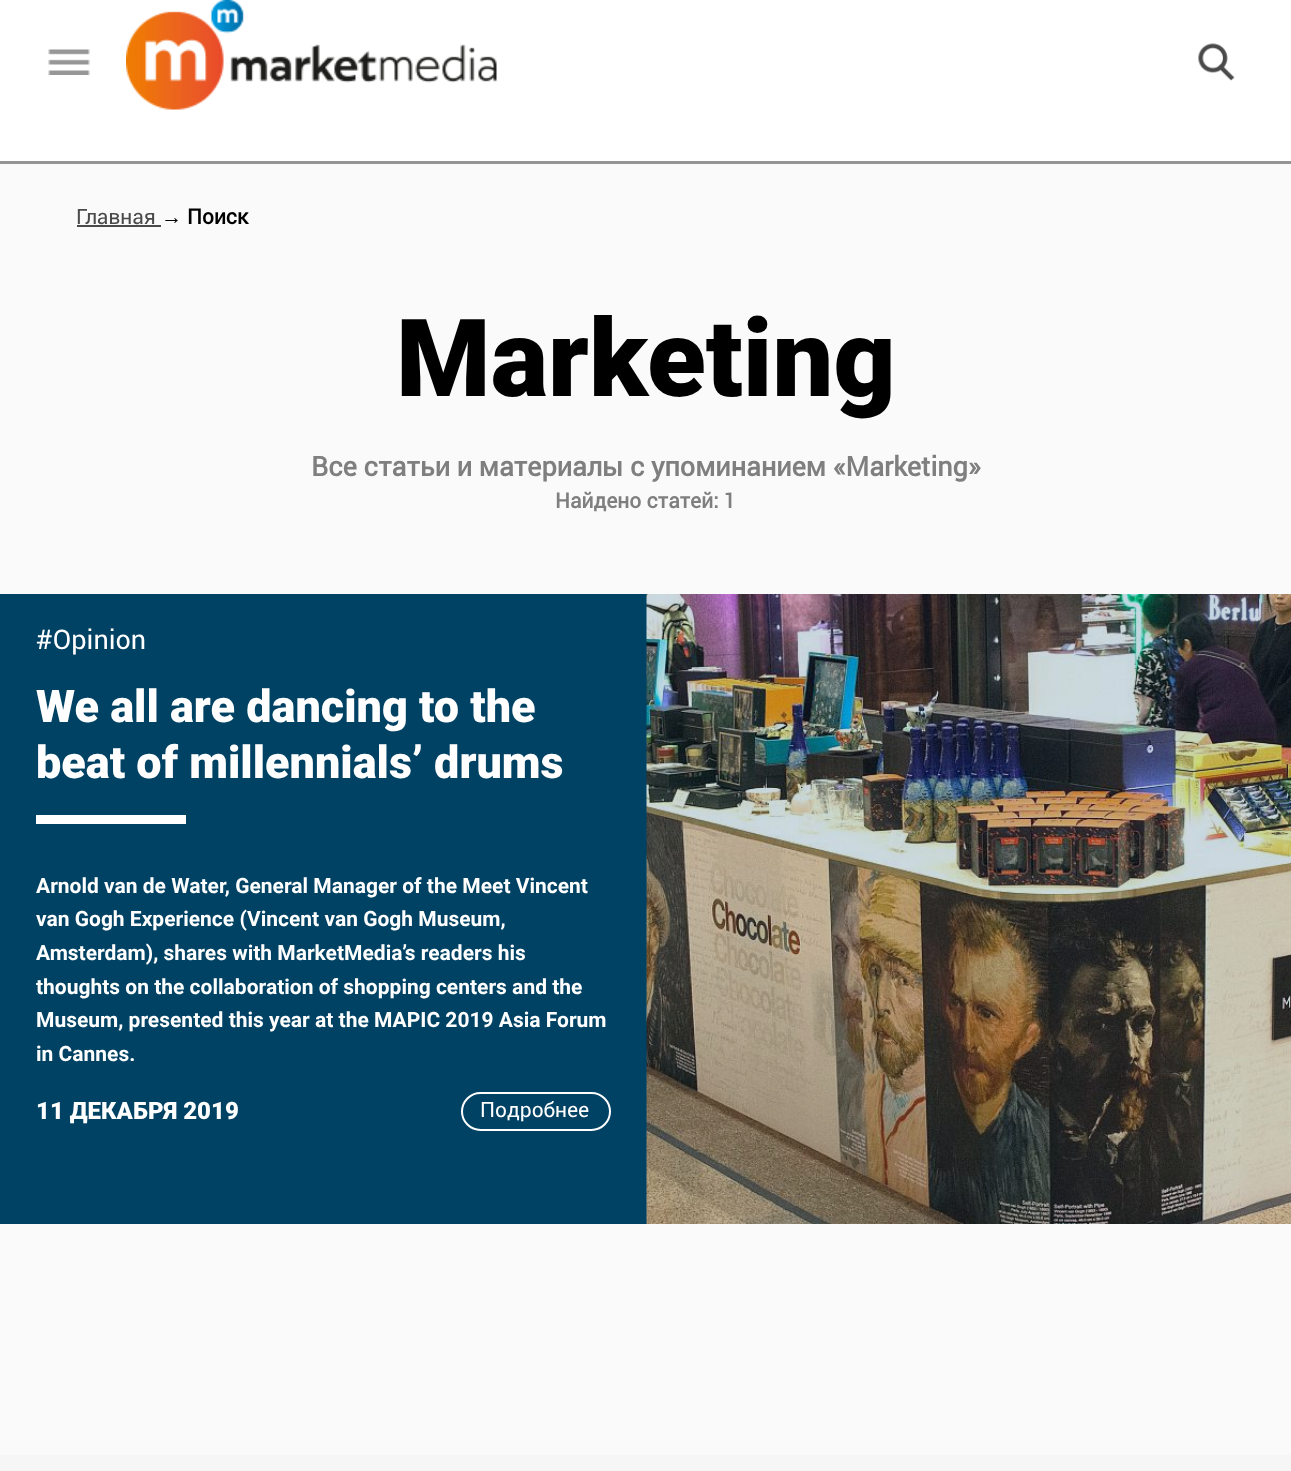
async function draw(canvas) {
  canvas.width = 1291
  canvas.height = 1471
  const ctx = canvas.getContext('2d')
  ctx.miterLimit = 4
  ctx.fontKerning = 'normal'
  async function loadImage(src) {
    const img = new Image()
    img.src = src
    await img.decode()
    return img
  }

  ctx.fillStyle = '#fafafa'
  ctx.fillRect(0, 0, 1291, 1471)
  ctx.fillStyle = '#fff'
  ctx.fillRect(0, 0, 1291, 161)
  ctx.fillStyle = '#949494'
  ctx.fillRect(0, 161, 1291, 3)
  ctx.drawImage(await loadImage('image0.png'), 48, 49, 42, 26)
  ctx.drawImage(await loadImage('image1.png'), 126, 0, 371, 110)
  ctx.drawImage(await loadImage('image2.png'), 1198, 43, 37, 38)
  ctx.font = '21px Roboto'
  ctx.fillStyle = '#4a4a4a'
  ctx.fillText('Главная', 76, 224)
  ctx.fillRect(77, 225, 84, 2)
  ctx.font = 'bold 21px Liberation Sans'
  ctx.fillStyle = '#000'
  ctx.fillText('→', 161, 224)
  ctx.font = 'bold 21px Roboto'
  ctx.fillText('Поиск', 187, 224)
  ctx.font = '900 108px Roboto'
  ctx.fillText('Marketing', 396, 396)
  ctx.font = 'bold 27px Roboto'
  ctx.fillStyle = '#7f7f7f'
  ctx.fillText('Все статьи и материалы с упоминанием «Marketing»', 311, 476)
  ctx.font = 'bold 21px Roboto'
  ctx.fillText('Найдено статей: 1', 555, 508)
  ctx.fillStyle = '#004264'
  ctx.fillRect(0, 594, 1291, 630)
  ctx.font = '27px Roboto'
  ctx.fillStyle = '#fff'
  ctx.fillText('#Opinion', 36, 649)
  ctx.font = '900 45px Roboto'
  ctx.fillText('We all are dancing to the', 36, 722)
  ctx.fillText('beat of millennials’ drums', 36, 778)
  ctx.fillRect(36, 815, 150, 9)
  ctx.font = 'bold 21px "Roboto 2"'
  ctx.fillText('Arnold van de Water, General Manager of the Meet Vincent', 36, 893)
  ctx.fillText('van Gogh Experience (Vincent van Gogh Museum,', 36, 926)
  ctx.fillText('Amsterdam), shares with MarketMedia’s readers his', 36, 960)
  ctx.fillText('thoughts on the collaboration of shopping centers and the', 36, 994)
  ctx.fillText('Museum, presented this year at the MAPIC 2019 Asia Forum', 36, 1027)
  ctx.fillText('in Cannes.', 36, 1061)
  ctx.font = '900 24px Roboto'
  ctx.fillText('11 ДЕКАБРЯ 2019', 36, 1119)
  ctx.beginPath()
  ctx.roundRect(462, 1093, 148, 37, 18.5)
  ctx.strokeStyle = '#fff'
  ctx.lineWidth = 2
  ctx.stroke()
  ctx.font = '21px Roboto'
  ctx.fillText('Подробнее', 480, 1117)
  ctx.drawImage(await loadImage('image3.png'), 646, 594, 645, 630)
  ctx.fillStyle = '#f6f6f6'
  ctx.fillRect(0, 1455, 1291, 16)
}

draw(document.querySelector('canvas'))
